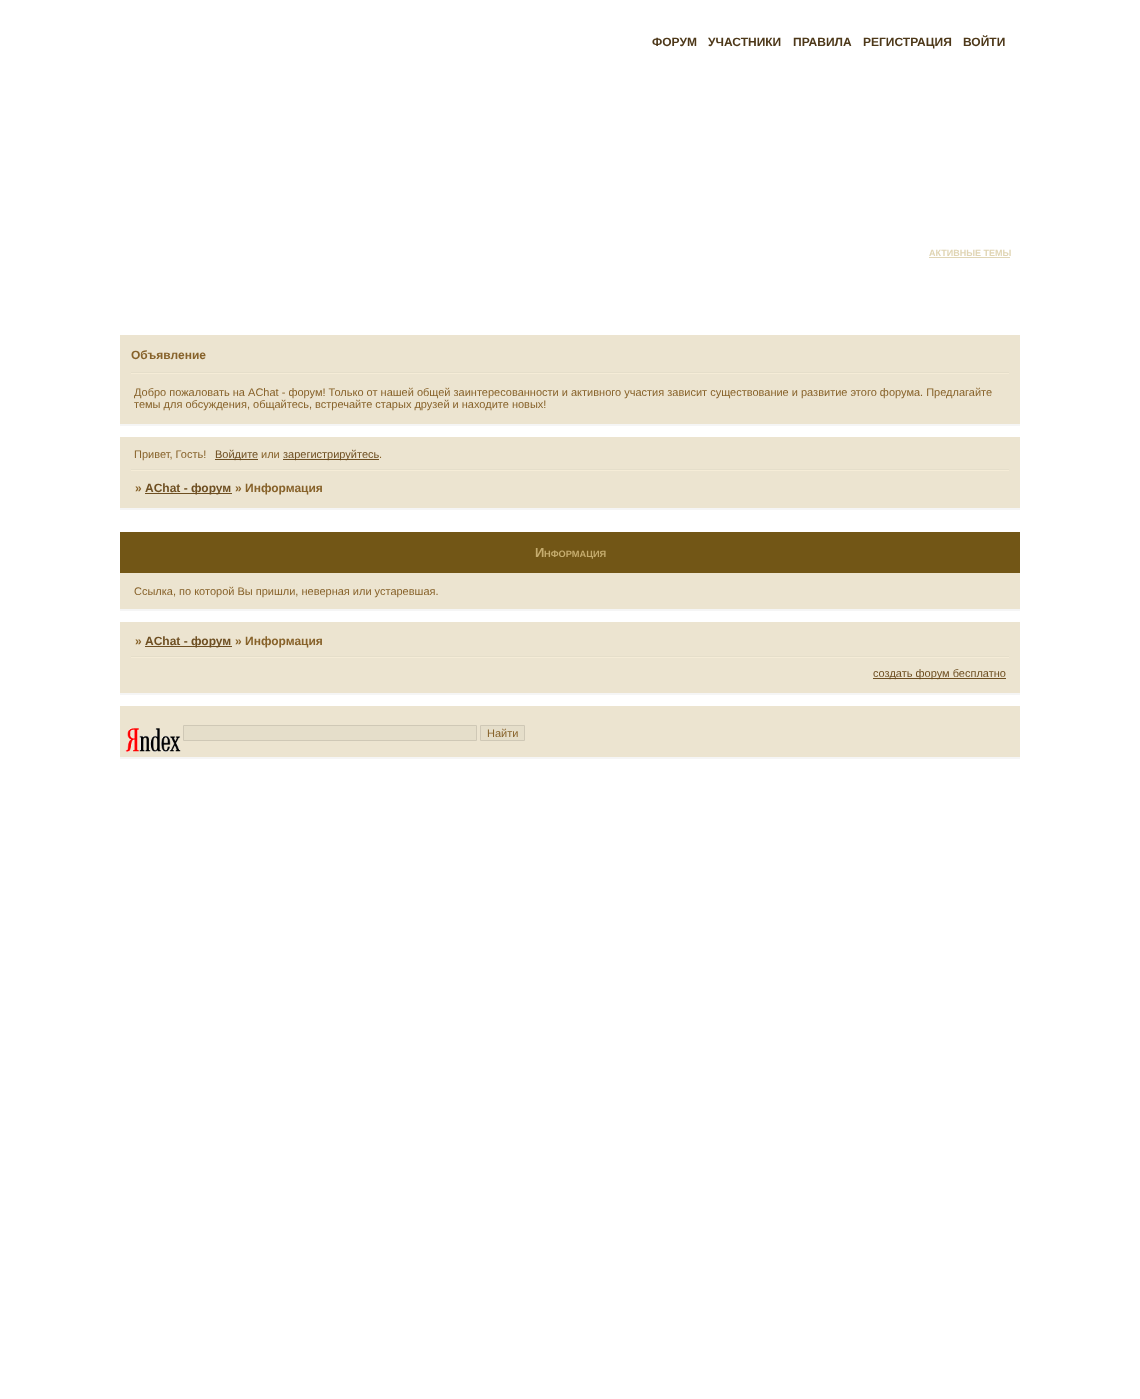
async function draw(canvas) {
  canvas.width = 1140
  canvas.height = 1399
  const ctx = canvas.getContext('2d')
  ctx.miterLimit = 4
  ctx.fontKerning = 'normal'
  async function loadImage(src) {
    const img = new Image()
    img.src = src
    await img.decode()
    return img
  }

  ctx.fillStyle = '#fff'
  ctx.fillRect(0, 0, 1140, 1399)
  ctx.font = 'bold 12px Liberation Sans'
  ctx.fillStyle = '#4d3819'
  ctx.fillText('ФОРУМ', 652, 46)
  ctx.fillText('УЧАСТНИКИ', 708, 46)
  ctx.fillText('ПРАВИЛА', 793, 46)
  ctx.fillText('РЕГИСТРАЦИЯ', 863, 46)
  ctx.fillText('ВОЙТИ', 963, 46)
  ctx.font = 'bold 9px Liberation Sans'
  ctx.fillStyle = '#e0d5b4'
  ctx.fillText('АКТИВНЫЕ ТЕМЫ', 929, 256)
  ctx.fillRect(929, 257, 81, 1)
  ctx.fillStyle = '#f5f5f5'
  ctx.fillRect(120, 424, 900, 2)
  ctx.fillStyle = '#ece4d0'
  ctx.fillRect(120, 335, 900, 89)
  ctx.fillStyle = '#f5ecd7'
  ctx.fillRect(131, 373, 878, 1)
  ctx.fillStyle = '#e5deca'
  ctx.fillRect(131, 372, 878, 1)
  ctx.font = 'bold 12px Liberation Sans'
  ctx.fillStyle = '#87622a'
  ctx.fillText('Объявление', 131, 359)
  ctx.font = '11px Liberation Sans'
  ctx.fillText('Добро пожаловать на AChat - форум! Только от нашей общей заинтересованности и активного участия зависит существование и развитие этого форума. Предлагайте', 134, 396)
  ctx.fillText('темы для обсуждения, общайтесь, встречайте старых друзей и находите новых!', 134, 408)
  ctx.fillStyle = '#ece4d0'
  ctx.fillRect(120, 437, 900, 71)
  ctx.fillStyle = '#87622a'
  ctx.fillText('Привет, Гость!', 134, 458)
  ctx.fillStyle = '#6e4f22'
  ctx.fillRect(215, 459, 43, 1)
  ctx.fillText('Войдите', 215, 458)
  ctx.fillStyle = '#87622a'
  ctx.fillText('или', 261, 458)
  ctx.fillStyle = '#6e4f22'
  ctx.fillRect(283, 459, 96, 1)
  ctx.fillText('зарегистрируйтесь', 283, 458)
  ctx.fillStyle = '#87622a'
  ctx.fillText('.', 379, 458)
  ctx.fillStyle = '#e5deca'
  ctx.fillRect(131, 469, 878, 1)
  ctx.fillStyle = '#f5ecd7'
  ctx.fillRect(131, 470, 878, 1)
  ctx.fillStyle = '#f5f5f5'
  ctx.fillRect(120, 508, 900, 2)
  ctx.font = 'bold 12px Liberation Sans'
  ctx.fillStyle = '#87622a'
  ctx.fillText('»', 135, 492)
  ctx.fillStyle = '#6e4f22'
  ctx.fillRect(145, 493, 87, 1)
  ctx.fillText('AChat - форум', 145, 492)
  ctx.fillStyle = '#87622a'
  ctx.fillText('» Информация', 235, 492)
  ctx.fillStyle = '#725616'
  ctx.fillRect(120, 532, 900, 41)
  ctx.font = 'bold 13px Liberation Sans'
  ctx.fillStyle = '#c5ac6e'
  ctx.fillText('И', 535, 557)
  ctx.font = 'bold 9.25px Liberation Sans'
  ctx.fillText('НФОРМАЦИЯ', 544, 557)
  ctx.fillStyle = '#f5f5f5'
  ctx.fillRect(120, 609, 900, 2)
  ctx.fillStyle = '#ece4d0'
  ctx.fillRect(120, 573, 900, 36)
  ctx.font = '11px Liberation Sans'
  ctx.fillStyle = '#87622a'
  ctx.fillText('Ссылка, по которой Вы пришли, неверная или устаревшая.', 134, 595)
  ctx.fillStyle = '#ece4d0'
  ctx.fillRect(120, 622, 900, 71)
  ctx.font = 'bold 12px Liberation Sans'
  ctx.fillStyle = '#87622a'
  ctx.fillText('»', 135, 645)
  ctx.fillStyle = '#6e4f22'
  ctx.fillRect(145, 646, 87, 1)
  ctx.fillText('AChat - форум', 145, 645)
  ctx.fillStyle = '#87622a'
  ctx.fillText('» Информация', 235, 645)
  ctx.fillStyle = '#e5deca'
  ctx.fillRect(131, 656, 878, 1)
  ctx.fillStyle = '#f5ecd7'
  ctx.fillRect(131, 657, 878, 1)
  ctx.fillStyle = '#f5f5f5'
  ctx.fillRect(120, 693, 900, 2)
  ctx.fillStyle = '#6e4f22'
  ctx.fillRect(873, 678, 133, 1)
  ctx.font = '11px Liberation Sans'
  ctx.fillText('создать форум бесплатно', 873, 677)
  ctx.fillStyle = '#f5f5f5'
  ctx.fillRect(120, 757, 900, 2)
  ctx.fillStyle = '#ece4d0'
  ctx.fillRect(120, 706, 900, 51)
  ctx.drawImage(await loadImage('image0.png'), 125, 728, 56, 24)
  ctx.fillStyle = '#e5deca'
  ctx.beginPath()
  ctx.rect(183.5, 725.5, 293, 15)
  ctx.fill()
  ctx.strokeStyle = '#cfc8b6'
  ctx.stroke()
  ctx.beginPath()
  ctx.rect(480.5, 725.5, 44, 15)
  ctx.fill()
  ctx.stroke()
  ctx.fillStyle = '#87622a'
  ctx.fillText('Найти', 487, 737)
}

draw(document.querySelector('canvas'))
